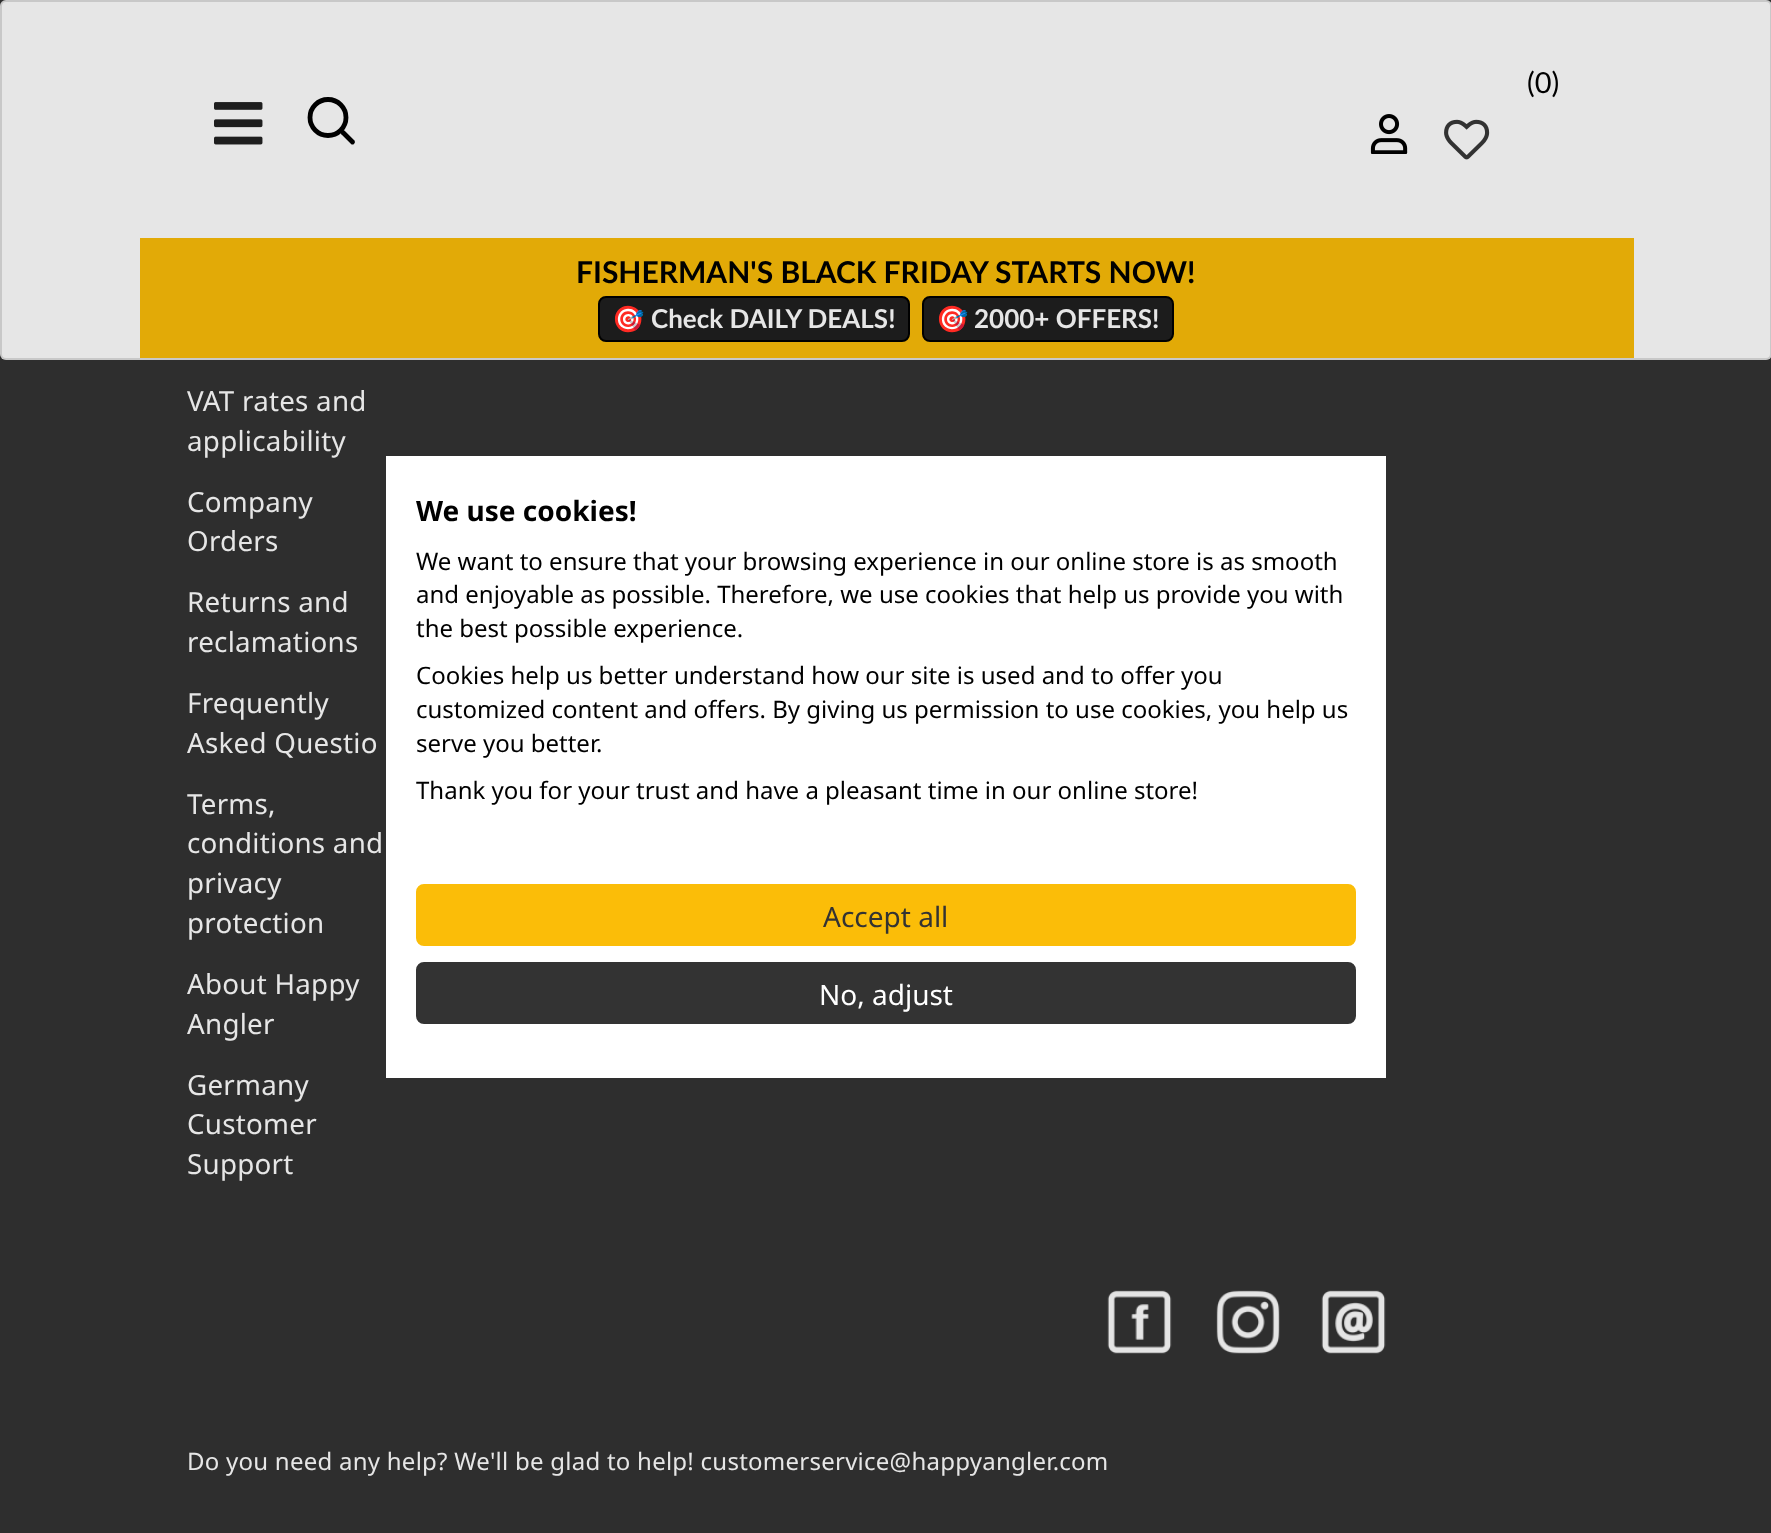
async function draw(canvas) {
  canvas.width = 1771
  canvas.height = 1533
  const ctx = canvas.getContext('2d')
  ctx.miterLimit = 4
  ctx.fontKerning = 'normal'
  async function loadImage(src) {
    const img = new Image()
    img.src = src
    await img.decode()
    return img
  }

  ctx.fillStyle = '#2e2e2e'
  ctx.fillRect(0, 0, 1771, 1533)
  ctx.fillStyle = '#e6e6e6'
  ctx.beginPath()
  ctx.roundRect(0, 0, 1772, 360, 6)
  ctx.fill()
  ctx.beginPath()
  ctx.roundRect(1, 1, 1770, 358, 5)
  ctx.strokeStyle = '#1f202226'
  ctx.lineWidth = 2
  ctx.stroke()
  ctx.font = '29px Lato'
  ctx.fillStyle = '#000'
  ctx.fillText('(0)', 1527, 93)
  ctx.drawImage(await loadImage('image0.png'), 1370, 114, 38, 40)
  ctx.drawImage(await loadImage('image1.png'), 1444, 119, 46, 41)
  ctx.drawImage(await loadImage('image2.png'), 214, 102, 49, 43)
  ctx.beginPath()
  ctx.arc(328, 117.5, 18, 0, 2 * Math.PI)
  ctx.strokeStyle = '#000'
  ctx.lineWidth = 4.8
  ctx.stroke()
  ctx.beginPath()
  ctx.moveTo(343, 132.5)
  ctx.lineTo(352.5, 142)
  ctx.lineCap = 'round'
  ctx.lineJoin = 'round'
  ctx.stroke()
  ctx.fillStyle = '#e2aa07'
  ctx.fillRect(140, 238, 1494, 120)
  ctx.font = 'bold 30px Lato'
  ctx.fillStyle = '#000'
  ctx.fillText('FISHERMAN\'S BLACK FRIDAY STARTS NOW!', 576, 283)
  ctx.fillStyle = '#1c1c1c'
  ctx.beginPath()
  ctx.roundRect(599, 297, 310, 44, 7)
  ctx.fill()
  ctx.lineWidth = 2
  ctx.lineJoin = 'miter'
  ctx.stroke()
  ctx.font = 'bold 26px Noto Color Emoji'
  ctx.fillStyle = '#e6e6e6'
  ctx.fillText('🎯', 612, 328)
  ctx.font = 'bold 26px Lato'
  ctx.fillText('Check DAILY DEALS!', 651, 328)
  ctx.fillStyle = '#1c1c1c'
  ctx.beginPath()
  ctx.roundRect(923, 297, 250, 44, 7)
  ctx.fill()
  ctx.stroke()
  ctx.font = 'bold 26px Noto Color Emoji'
  ctx.fillStyle = '#e6e6e6'
  ctx.fillText('🎯', 936, 328)
  ctx.font = 'bold 26px Lato'
  ctx.fillText('2000+ OFFERS!', 974, 328)
  ctx.letterSpacing = '0.25px'
  ctx.font = '27.75px Noto Sans'
  ctx.fillText('VAT rates and', 187, 411)
  ctx.fillText('applicability', 187, 451)
  ctx.fillText('Company', 187, 512)
  ctx.fillText('Orders', 187, 551)
  ctx.fillText('Returns and', 187, 612)
  ctx.fillText('reclamations', 187, 652)
  ctx.fillText('Frequently', 187, 713)
  ctx.fillText('Asked Questio', 187, 753)
  ctx.fillText('Terms,', 187, 814)
  ctx.fillText('conditions and', 187, 853)
  ctx.fillText('privacy', 187, 893)
  ctx.fillText('protection', 187, 933)
  ctx.fillText('About Happy', 187, 994)
  ctx.fillText('Angler', 187, 1034)
  ctx.fillText('Germany', 187, 1095)
  ctx.fillText('Customer', 187, 1134)
  ctx.fillText('Support', 187, 1174)
  ctx.drawImage(await loadImage('image3.png'), 1107, 1290, 65, 64)
  ctx.drawImage(await loadImage('image4.png'), 1216, 1290, 64, 64)
  ctx.drawImage(await loadImage('image5.png'), 1321, 1290, 65, 64)
  ctx.font = '24px Noto Sans'
  ctx.fillText('Do you need any help? We\'ll be glad to help! customerservice@happyangler.com', 187, 1470)
  ctx.fillStyle = '#fff'
  ctx.fillRect(386, 456, 1000, 622)
  ctx.letterSpacing = '0px'
  ctx.font = 'bold 28px Noto Sans'
  ctx.fillStyle = '#000'
  ctx.fillText('We use cookies!', 416, 521)
  ctx.font = '24px Noto Sans'
  ctx.fillText('We want to ensure that your browsing experience in our online store is as smooth', 416, 570)
  ctx.fillText('and enjoyable as possible. Therefore, we use cookies that help us provide you with', 416, 603)
  ctx.fillText('the best possible experience.', 416, 637)
  ctx.fillText('Cookies help us better understand how our site is used and to offer you', 416, 684)
  ctx.fillText('customized content and offers. By giving us permission to use cookies, you help us', 416, 718)
  ctx.fillText('serve you better.', 416, 752)
  ctx.fillText('Thank you for your trust and have a pleasant time in our online store!', 416, 799)
  ctx.fillStyle = '#fbbd08'
  ctx.beginPath()
  ctx.roundRect(417, 885, 938, 60, 7)
  ctx.fill()
  ctx.strokeStyle = '#fbbd08'
  ctx.stroke()
  ctx.font = '28px Noto Sans'
  ctx.fillStyle = '#333'
  ctx.fillText('Accept all', 823, 927)
  ctx.beginPath()
  ctx.roundRect(417, 963, 938, 60, 7)
  ctx.fill()
  ctx.strokeStyle = '#333'
  ctx.stroke()
  ctx.fillStyle = '#fff'
  ctx.fillText('No, adjust', 819, 1005)
}

draw(document.querySelector('canvas'))
